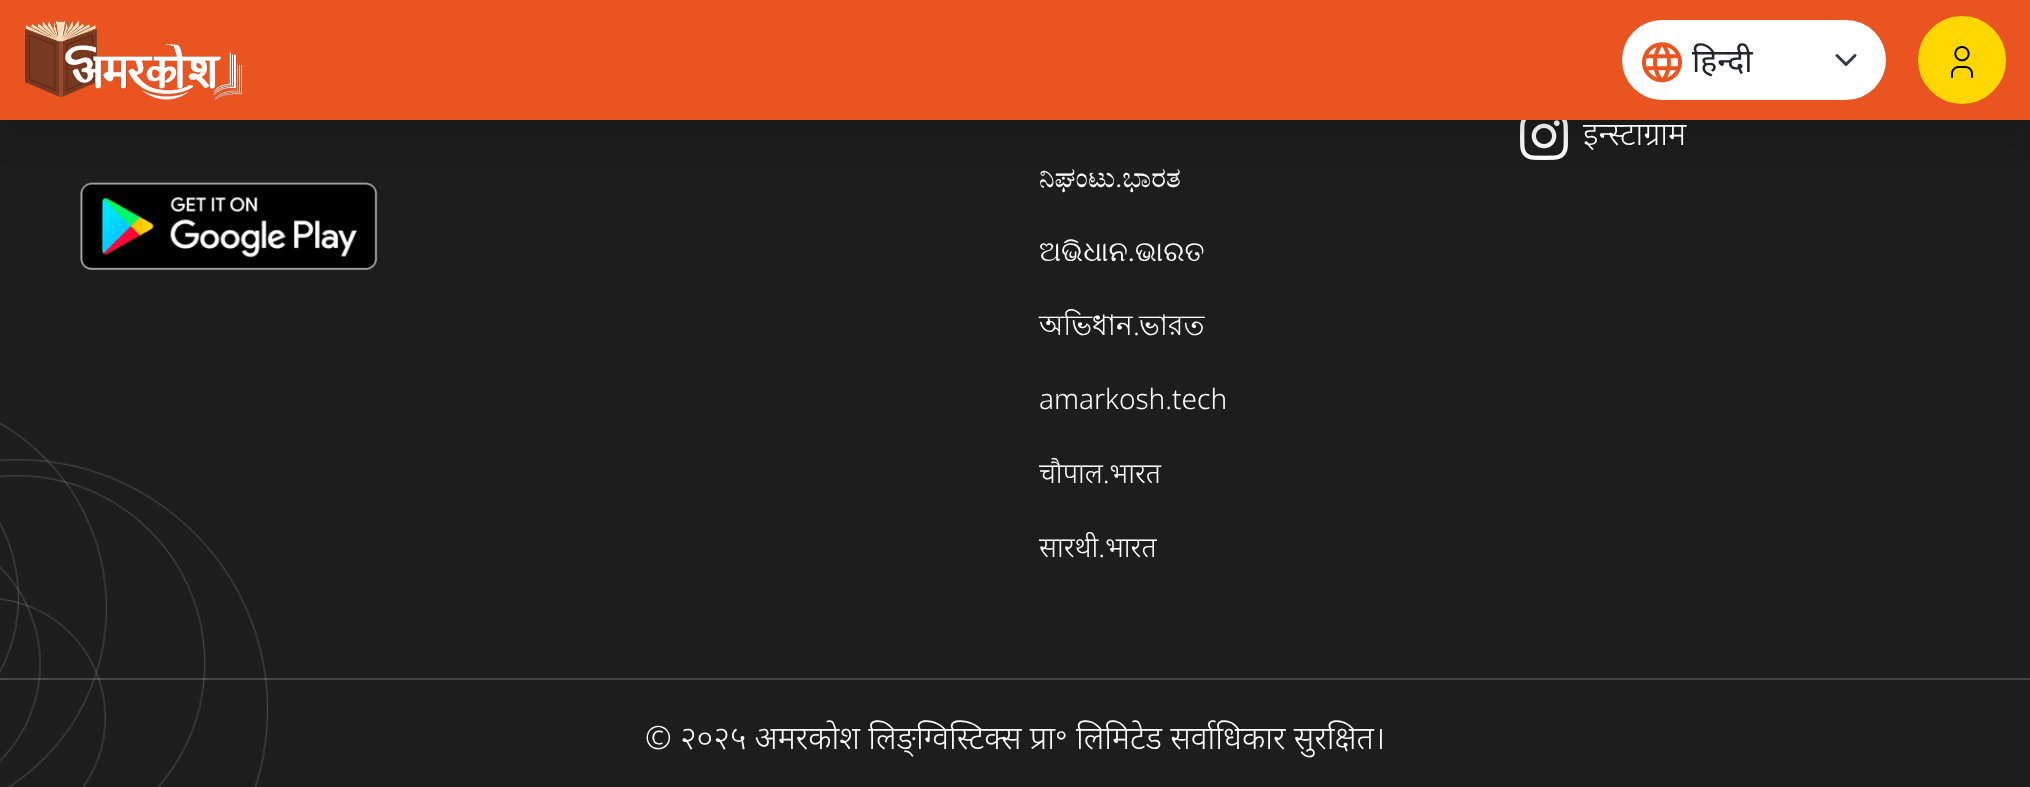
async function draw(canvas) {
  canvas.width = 2030
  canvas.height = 787
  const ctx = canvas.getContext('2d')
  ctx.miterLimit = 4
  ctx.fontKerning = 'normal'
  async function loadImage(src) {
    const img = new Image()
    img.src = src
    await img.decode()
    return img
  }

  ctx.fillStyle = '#1d1d1d'
  ctx.fillRect(0, 0, 2030, 787)
  ctx.drawImage(await loadImage('image3.png'), 1520, 120, 48, 40)
  ctx.drawImage(await loadImage('image4.png'), 80, 182, 298, 88)
  ctx.fillStyle = '#00000026'
  ctx.filter = 'blur(16px)'
  ctx.beginPath()
  ctx.rect(0, 16, 2030, 120)
  ctx.fill()
  ctx.filter = 'none'
  ctx.fillStyle = '#e95420'
  ctx.fillRect(0, 0, 2030, 120)
  ctx.drawImage(await loadImage('image0.png'), 24, 20, 218, 80)
  ctx.fillStyle = '#fff'
  ctx.beginPath()
  ctx.roundRect(1622, 20, 264, 80, 40)
  ctx.fill()
  ctx.drawImage(await loadImage('image1.png'), 1642, 42, 40, 41)
  ctx.beginPath()
  ctx.moveTo(1837, 55.5)
  ctx.lineTo(1846, 64.5)
  ctx.lineTo(1855, 55.5)
  ctx.strokeStyle = '#343a40'
  ctx.lineWidth = 3
  ctx.lineCap = 'round'
  ctx.lineJoin = 'round'
  ctx.stroke()
  ctx.font = '32px Noto Sans'
  ctx.fillStyle = '#212529'
  ctx.fillText('हिन्दी', 1692, 72)
  ctx.fillStyle = '#ffd700'
  ctx.beginPath()
  ctx.arc(1962, 60, 43, 0, 2 * Math.PI)
  ctx.fill()
  ctx.strokeStyle = '#ffd700'
  ctx.lineWidth = 2
  ctx.stroke()
  ctx.drawImage(await loadImage('image2.png'), 1951, 46, 22, 32)
  ctx.font = '300 32px Noto Sans'
  ctx.fillStyle = '#fff'
  ctx.fillText('इन्स्टाग्राम', 1583, 145)
  ctx.font = '28px FreeSerif'
  ctx.fillText('ನಿಘಂಟು.ಭಾರತ', 1039, 187)
  ctx.fillText('ଅଭିଧାନ.ଭାରତ', 1039, 261)
  ctx.font = '28px Lohit Bengali'
  ctx.fillText('অভিধান', 1039, 335)
  ctx.font = '300 28px Noto Sans'
  ctx.fillText('.', 1133, 335)
  ctx.font = '28px Lohit Bengali'
  ctx.fillText('ভারত', 1139, 335)
  ctx.font = '300 28px Noto Sans'
  ctx.fillText('amarkosh.tech', 1039, 409)
  ctx.fillText('चौपाल.भारत', 1039, 483)
  ctx.fillText('सारथी.भारत', 1039, 557)
  ctx.fillStyle = '#464646'
  ctx.fillRect(0, 678, 2030, 2)
  ctx.drawImage(await loadImage('image5.png'), 0, 422, 268, 365)
  ctx.font = '300 32px Noto Sans'
  ctx.fillStyle = '#fff'
  ctx.fillText('© २०२५ अमरकोश लिङ्ग्विस्टिक्स प्रा॰ लिमिटेड सर्वाधिकार सुरक्षित।', 645, 749)
}

draw(document.querySelector('canvas'))
